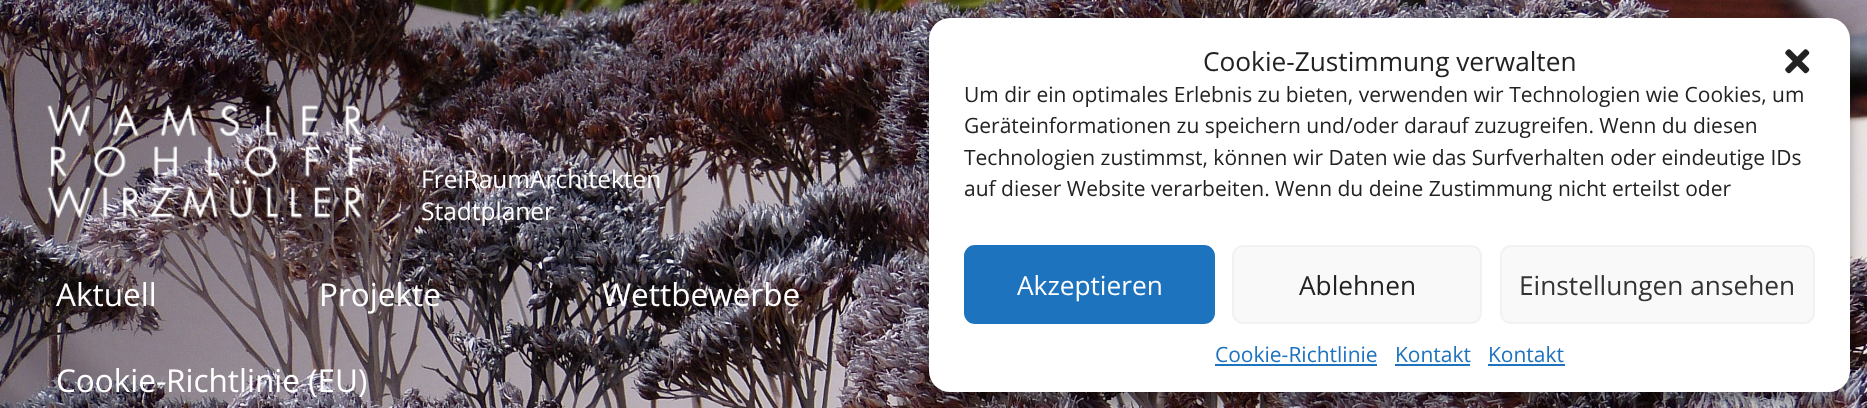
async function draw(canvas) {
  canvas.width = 1867
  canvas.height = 408
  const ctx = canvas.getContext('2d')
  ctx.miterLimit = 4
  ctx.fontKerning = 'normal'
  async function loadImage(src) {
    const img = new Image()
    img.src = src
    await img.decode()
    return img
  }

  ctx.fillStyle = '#fff'
  ctx.fillRect(0, 0, 1867, 408)
  ctx.drawImage(await loadImage('image0.png'), 0, 0, 1867, 408)
  ctx.drawImage(await loadImage('image1.png'), 47, 105, 316, 113)
  ctx.font = '24.5px Open Sans'
  ctx.fillText('FreiRaumArchitekten', 421, 188)
  ctx.fillText('Stadtplaner', 421, 220)
  ctx.font = '31.5px Open Sans'
  ctx.fillText('Aktuell', 56, 306)
  ctx.fillText('Projekte', 319, 306)
  ctx.fillText('Wettbewerbe', 602, 306)
  ctx.fillText('Cookie-Richtlinie (EU)', 56, 392)
  ctx.fillStyle = '#0000003b'
  ctx.filter = 'blur(5px)'
  ctx.beginPath()
  ctx.roundRect(929, 28, 921, 375, 21)
  ctx.fill()
  ctx.filter = 'none'
  ctx.fillStyle = '#00000030'
  ctx.filter = 'blur(17.5px)'
  ctx.beginPath()
  ctx.roundRect(929, 35, 921, 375, 21)
  ctx.fill()
  ctx.filter = 'none'
  ctx.fillStyle = '#fff'
  ctx.beginPath()
  ctx.roundRect(929, 18, 921, 374, 21)
  ctx.fill()
  ctx.font = '26.25px Open Sans'
  ctx.fillStyle = '#222'
  ctx.fillText('Cookie-Zustimmung verwalten', 1203, 71)
  ctx.drawImage(await loadImage('image2.png'), 1785, 49, 25, 25)
  ctx.font = '21px Open Sans'
  ctx.fillText('Um dir ein optimales Erlebnis zu bieten, verwenden wir Technologien wie Cookies, um', 964, 102)
  ctx.fillText('Geräteinformationen zu speichern und/oder darauf zuzugreifen. Wenn du diesen', 964, 133)
  ctx.fillText('Technologien zustimmst, können wir Daten wie das Surfverhalten oder eindeutige IDs', 964, 165)
  ctx.fillText('auf dieser Website verarbeiten. Wenn du deine Zustimmung nicht erteilst oder', 964, 196)
  ctx.fillStyle = '#1e73be'
  ctx.beginPath()
  ctx.roundRect(965, 246, 249, 77, 10)
  ctx.fill()
  ctx.strokeStyle = '#1e73be'
  ctx.lineWidth = 2
  ctx.stroke()
  ctx.font = '26.25px Open Sans'
  ctx.fillStyle = '#fff'
  ctx.fillText('Akzeptieren', 1017, 295)
  ctx.fillStyle = '#f9f9f9'
  ctx.beginPath()
  ctx.roundRect(1233, 246, 248, 77, 10)
  ctx.fill()
  ctx.strokeStyle = '#f2f2f2'
  ctx.stroke()
  ctx.fillStyle = '#222'
  ctx.fillText('Ablehnen', 1299, 295)
  ctx.fillStyle = '#f9f9f9'
  ctx.beginPath()
  ctx.roundRect(1501, 246, 313, 77, 10)
  ctx.fill()
  ctx.stroke()
  ctx.fillStyle = '#333'
  ctx.fillText('Einstellungen ansehen', 1519, 295)
  ctx.font = '21px Open Sans'
  ctx.fillStyle = '#1e73be'
  ctx.fillText('Cookie-Richtlinie', 1215, 362)
  ctx.fillRect(1215, 364, 162, 2)
  ctx.fillText('Kontakt', 1395, 362)
  ctx.fillRect(1395, 364, 75, 2)
  ctx.fillText('Kontakt', 1488, 362)
  ctx.fillRect(1488, 364, 77, 2)
}

draw(document.querySelector('canvas'))
